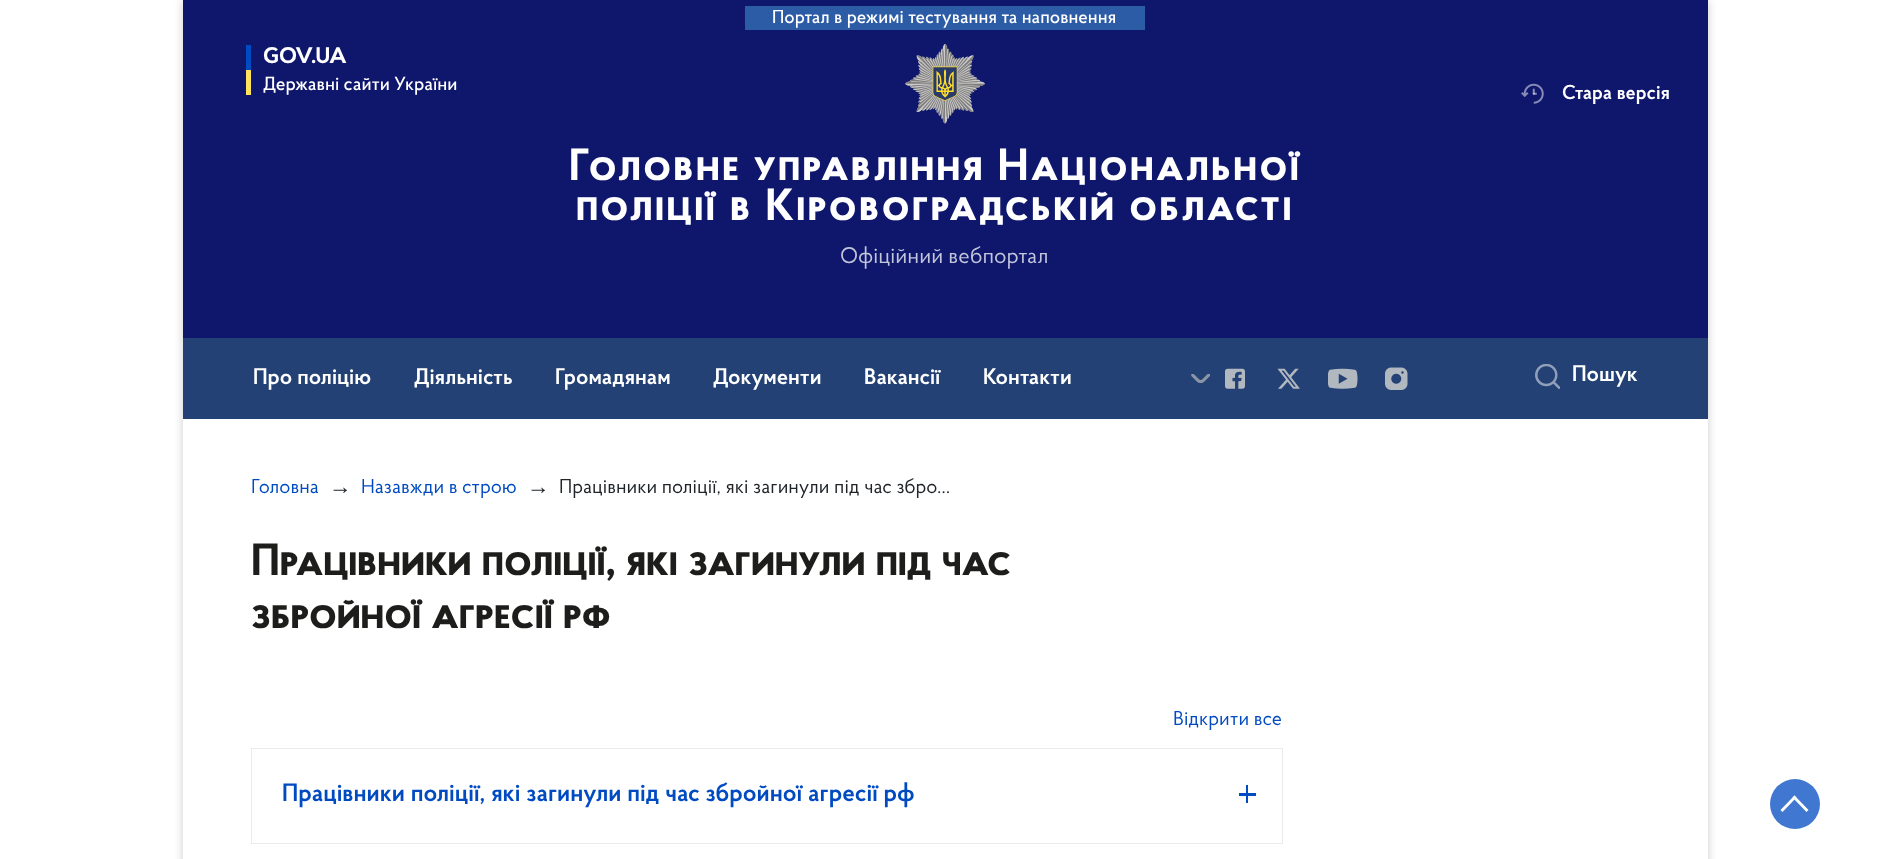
async function draw(canvas) {
  canvas.width = 1888
  canvas.height = 859
  const ctx = canvas.getContext('2d')
  ctx.miterLimit = 4
  ctx.fontKerning = 'normal'
  async function loadImage(src) {
    const img = new Image()
    img.src = src
    await img.decode()
    return img
  }

  ctx.fillStyle = '#fff'
  ctx.fillRect(0, 0, 1888, 859)
  ctx.fillStyle = '#00000033'
  ctx.filter = 'blur(5px)'
  ctx.beginPath()
  ctx.rect(183, 1, 1525, 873)
  ctx.fill()
  ctx.filter = 'none'
  ctx.fillStyle = '#fff'
  ctx.fillRect(183, 419, 1525, 440)
  ctx.fillStyle = '#0f176d'
  ctx.fillRect(183, 0, 1525, 338)
  ctx.fillStyle = '#2d5ca6'
  ctx.fillRect(745, 6, 400, 24)
  ctx.font = '500 18.75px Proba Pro'
  ctx.fillStyle = '#fff'
  ctx.fillText('Портал в режимі тестування та наповнення', 772, 23)
  ctx.fillStyle = '#004bc1'
  ctx.fillRect(246, 45, 5, 25)
  ctx.fillStyle = '#ffe358'
  ctx.fillRect(246, 70, 5, 25)
  ctx.font = 'bold 22.5px Proba Pro'
  ctx.fillStyle = '#fff'
  ctx.fillText('GOV.UA', 263, 63)
  ctx.font = '500 19.1px Proba Pro'
  ctx.fillText('Державні сайти України', 263, 90)
  ctx.drawImage(await loadImage('image0.png'), 1521, 83, 23, 21)
  ctx.font = '600 20px Proba Pro'
  ctx.fillText('Стара версія', 1562, 99)
  ctx.drawImage(await loadImage('image1.png'), 905, 44, 80, 80)
  ctx.letterSpacing = '2.5px'
  ctx.font = 'bold 45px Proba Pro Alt'
  ctx.fillText('Головне управління Національної', 569, 180)
  ctx.fillText('поліції в Кіровоградській області', 576, 220)
  ctx.letterSpacing = '0px'
  ctx.font = '22.5px Proba Pro'
  ctx.fillStyle = '#c3c5db'
  ctx.fillText('Офіційний вебпортал', 840, 263)
  ctx.fillStyle = '#234174'
  ctx.fillRect(183, 338, 1525, 81)
  ctx.font = '600 22.5px Proba Pro'
  ctx.fillStyle = '#fff'
  ctx.fillText('Про поліцію', 253, 384)
  ctx.fillText('Діяльність', 414, 384)
  ctx.fillText('Громадянам', 555, 384)
  ctx.fillText('Документи', 713, 384)
  ctx.fillText('Вакансії', 864, 384)
  ctx.fillText('Контакти', 983, 384)
  ctx.drawImage(await loadImage('image2.png'), 1191, 374, 19, 9)
  ctx.drawImage(await loadImage('image3.png'), 1225, 368, 20, 21)
  ctx.drawImage(await loadImage('image4.png'), 1277, 368, 23, 21)
  ctx.drawImage(await loadImage('image5.png'), 1328, 368, 30, 21)
  ctx.drawImage(await loadImage('image6.png'), 1385, 367, 23, 23)
  ctx.drawImage(await loadImage('image7.png'), 1535, 364, 25, 25)
  ctx.fillText('Пошук', 1572, 381)
  ctx.font = '20px Proba Pro'
  ctx.fillStyle = '#004bc1'
  ctx.fillText('Головна', 251, 493)
  ctx.font = '22.5px Liberation Sans'
  ctx.fillStyle = '#212529'
  ctx.fillText('→', 329, 494)
  ctx.font = '20px Proba Pro'
  ctx.fillStyle = '#004bc1'
  ctx.fillText('Назавжди в строю', 361, 493)
  ctx.font = '22.5px Liberation Sans'
  ctx.fillStyle = '#212529'
  ctx.fillText('→', 527, 494)
  ctx.font = '20px Proba Pro'
  ctx.fillText('Працівники поліції, які загинули під час збро…', 559, 493)
  ctx.font = 'bold 45px Proba Pro Alt'
  ctx.fillStyle = '#1d1d1b'
  ctx.fillText('Працівники поліції, які загинули під час', 251, 575)
  ctx.fillText('збройної агресії рф', 251, 628)
  ctx.font = '20px Proba Pro'
  ctx.fillStyle = '#004bc1'
  ctx.fillText('Відкрити все', 1173, 725)
  ctx.strokeStyle = '#ebebeb'
  ctx.strokeRect(251.5, 748.5, 1031, 95)
  ctx.font = '600 25px Proba Pro'
  ctx.fillText('Працівники поліції, які загинули під час збройної агресії рф', 282, 801)
  ctx.fillRect(1246, 785, 2, 18)
  ctx.fillRect(1239, 793, 17, 3)
  ctx.fillStyle = '#4078d1'
  ctx.beginPath()
  ctx.arc(1795, 804, 25, 0, 2 * Math.PI)
  ctx.fill()
  ctx.fillStyle = '#fff'
  ctx.beginPath()
  ctx.moveTo(1792.5, 797.5)
  ctx.lineTo(1794.5, 795.5)
  ctx.lineTo(1808.5, 810)
  ctx.lineTo(1806.5, 812)
  ctx.closePath()
  ctx.fill()
  ctx.beginPath()
  ctx.moveTo(1794.5, 795.5)
  ctx.lineTo(1796.5, 797.5)
  ctx.lineTo(1782.5, 812)
  ctx.lineTo(1780.5, 810)
  ctx.closePath()
  ctx.fill()
}

draw(document.querySelector('canvas'))
